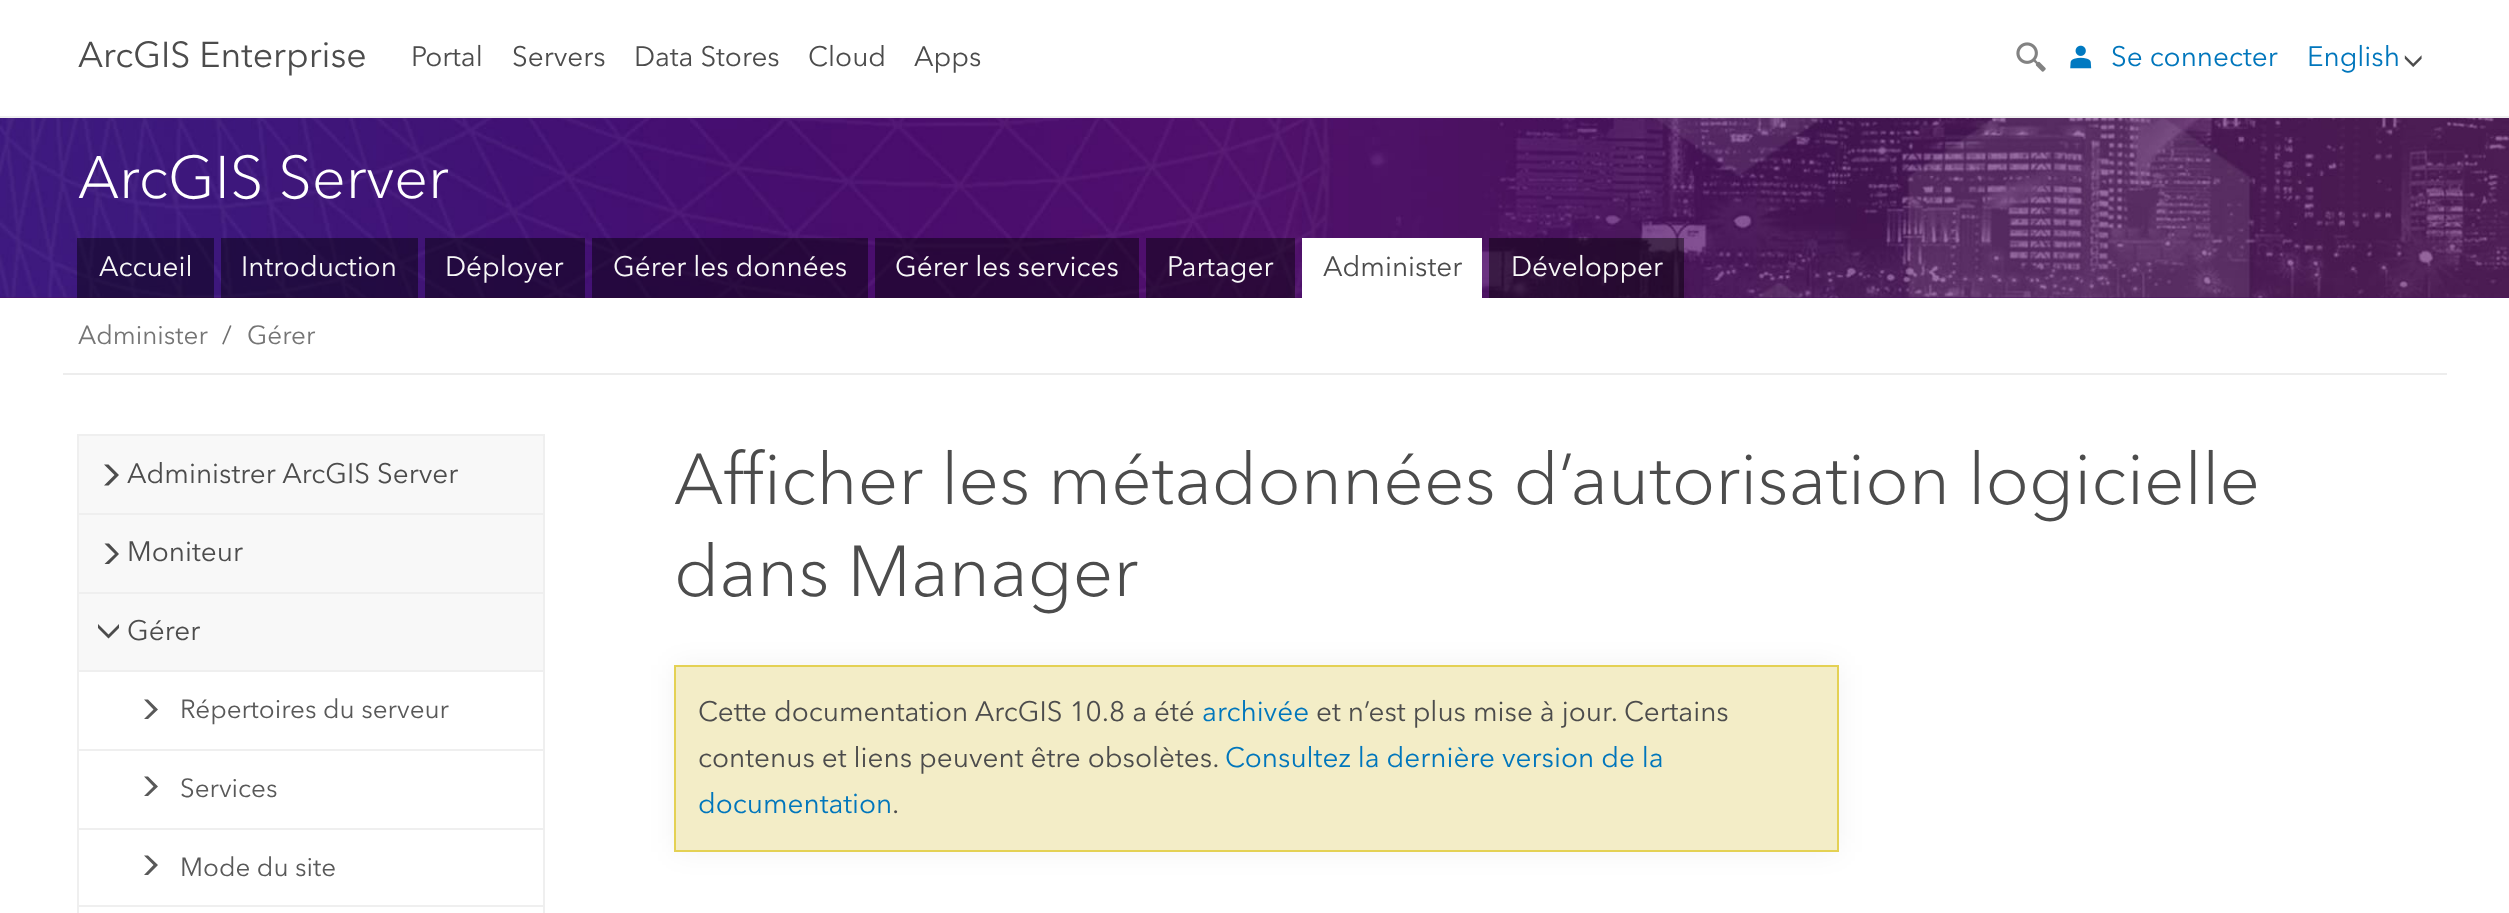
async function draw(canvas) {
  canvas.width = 2509
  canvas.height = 913
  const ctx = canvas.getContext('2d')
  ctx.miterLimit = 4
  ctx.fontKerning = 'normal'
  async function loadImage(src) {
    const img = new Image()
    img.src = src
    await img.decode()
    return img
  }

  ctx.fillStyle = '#fff'
  ctx.fillRect(0, 0, 2509, 913)
  ctx.fillStyle = '#efefef'
  ctx.fillRect(0, 116, 2509, 2)
  ctx.font = '35.75px Avenir Next'
  ctx.fillStyle = '#4c4c4c'
  ctx.fillText('ArcGIS Enterprise', 78, 67)
  ctx.font = '27.9px Avenir Next'
  ctx.fillText('Portal', 411, 66)
  ctx.fillText('Servers', 512, 66)
  ctx.fillText('Data Stores', 634, 66)
  ctx.fillText('Cloud', 808, 66)
  ctx.fillText('Apps', 914, 66)
  ctx.drawImage(await loadImage('image0.png'), 2016, 42, 30, 30)
  ctx.drawImage(await loadImage('image1.png'), 2070, 45, 22, 24)
  ctx.fillStyle = '#0076bc'
  ctx.fillText('Se connecter', 2111, 66)
  ctx.fillText('English', 2307, 66)
  ctx.drawImage(await loadImage('image2.png'), 2404, 55, 18, 12)
  ctx.fillStyle = '#4c1063'
  ctx.fillRect(0, 297, 2509, 1)
  ctx.drawImage(await loadImage('image3.png'), 0, 118, 2509, 180)
  ctx.font = '300 59.5px Avenir Next'
  ctx.fillStyle = '#fff'
  ctx.fillText('ArcGIS Server', 78, 198)
  ctx.fillStyle = '#00000073'
  ctx.fillRect(77, 238, 137, 60)
  ctx.font = '27.9px Avenir Next'
  ctx.fillStyle = '#f8f8f8'
  ctx.fillText('Accueil', 99, 276)
  ctx.fillStyle = '#00000073'
  ctx.fillRect(221, 238, 197, 60)
  ctx.fillStyle = '#f8f8f8'
  ctx.fillText('Introduction', 241, 276)
  ctx.fillStyle = '#00000073'
  ctx.fillRect(425, 238, 160, 60)
  ctx.fillStyle = '#f8f8f8'
  ctx.fillText('Déployer', 445, 276)
  ctx.fillStyle = '#00000073'
  ctx.fillRect(592, 238, 276, 60)
  ctx.fillStyle = '#f8f8f8'
  ctx.fillText('Gérer les données', 613, 276)
  ctx.fillStyle = '#00000073'
  ctx.fillRect(875, 238, 264, 60)
  ctx.fillStyle = '#f8f8f8'
  ctx.fillText('Gérer les services', 895, 276)
  ctx.fillStyle = '#00000073'
  ctx.fillRect(1146, 238, 149, 60)
  ctx.fillStyle = '#f8f8f8'
  ctx.fillText('Partager', 1167, 276)
  ctx.fillStyle = '#fff'
  ctx.fillRect(1302, 238, 180, 60)
  ctx.fillStyle = '#4c4c4c'
  ctx.fillText('Administer', 1323, 276)
  ctx.fillStyle = '#00000073'
  ctx.fillRect(1489, 238, 195, 60)
  ctx.fillStyle = '#f8f8f8'
  ctx.fillText('Développer', 1511, 276)
  ctx.fillStyle = '#ededed'
  ctx.fillRect(63, 373, 2384, 2)
  ctx.font = '26px Avenir Next'
  ctx.fillStyle = '#757575'
  ctx.fillText('Administer', 78, 344)
  ctx.fillStyle = '#6e6e6e'
  ctx.fillText('/', 222, 344)
  ctx.fillStyle = '#757575'
  ctx.fillText('Gérer', 247, 344)
  ctx.fillStyle = '#efefef'
  ctx.fillRect(543, 434, 2, 479)
  ctx.fillRect(77, 434, 2, 479)
  ctx.fillStyle = '#f8f8f8'
  ctx.fillRect(79, 436, 464, 77)
  ctx.fillStyle = '#efefef'
  ctx.fillRect(79, 434, 464, 2)
  ctx.fillStyle = '#4c4c4c'
  ctx.beginPath()
  ctx.moveTo(104, 464.5)
  ctx.lineTo(108.5, 464.5)
  ctx.lineTo(119, 475)
  ctx.lineTo(108.5, 485.5)
  ctx.lineTo(104, 485.5)
  ctx.lineTo(114.5, 475)
  ctx.closePath()
  ctx.fill()
  ctx.font = '27.9px Avenir Next'
  ctx.fillText('Administrer ArcGIS Server', 127, 483)
  ctx.fillStyle = '#f8f8f8'
  ctx.fillRect(79, 515, 464, 77)
  ctx.fillStyle = '#efefef'
  ctx.fillRect(79, 513, 464, 2)
  ctx.fillStyle = '#4c4c4c'
  ctx.beginPath()
  ctx.moveTo(104.5, 543.5)
  ctx.lineTo(109, 543.5)
  ctx.lineTo(119, 554)
  ctx.lineTo(109, 564)
  ctx.lineTo(104.5, 564)
  ctx.lineTo(115, 554)
  ctx.closePath()
  ctx.fill()
  ctx.fillText('Moniteur', 127, 561)
  ctx.fillStyle = '#f8f8f8'
  ctx.fillRect(79, 594, 464, 76)
  ctx.fillStyle = '#efefef'
  ctx.fillRect(79, 592, 464, 2)
  ctx.fillStyle = '#4c4c4c'
  ctx.beginPath()
  ctx.moveTo(119, 624)
  ctx.lineTo(119, 628)
  ctx.lineTo(108.5, 638.5)
  ctx.lineTo(98, 628)
  ctx.lineTo(98, 624)
  ctx.lineTo(108.5, 634.5)
  ctx.closePath()
  ctx.fill()
  ctx.fillText('Gérer', 127, 640)
  ctx.fillStyle = '#efefef'
  ctx.fillRect(79, 670, 464, 2)
  ctx.fillStyle = '#595959'
  ctx.beginPath()
  ctx.moveTo(144, 699.5)
  ctx.lineTo(148, 699.5)
  ctx.lineTo(158, 709.5)
  ctx.lineTo(148, 719)
  ctx.lineTo(144, 719)
  ctx.lineTo(153.5, 709.5)
  ctx.closePath()
  ctx.fill()
  ctx.font = '26px Avenir Next'
  ctx.fillText('Répertoires du serveur', 180, 718)
  ctx.fillStyle = '#efefef'
  ctx.fillRect(79, 749, 464, 2)
  ctx.fillStyle = '#595959'
  ctx.beginPath()
  ctx.moveTo(144, 776.5)
  ctx.lineTo(148, 776.5)
  ctx.lineTo(158, 786.5)
  ctx.lineTo(148, 796)
  ctx.lineTo(144, 796)
  ctx.lineTo(153.5, 786.5)
  ctx.closePath()
  ctx.fill()
  ctx.fillText('Services', 180, 797)
  ctx.fillStyle = '#efefef'
  ctx.fillRect(79, 828, 464, 2)
  ctx.fillStyle = '#595959'
  ctx.beginPath()
  ctx.moveTo(144, 855.5)
  ctx.lineTo(148, 855.5)
  ctx.lineTo(158, 865)
  ctx.lineTo(148, 875)
  ctx.lineTo(144, 875)
  ctx.lineTo(153.5, 865)
  ctx.closePath()
  ctx.fill()
  ctx.fillText('Mode du site', 180, 876)
  ctx.fillStyle = '#efefef'
  ctx.fillRect(79, 905, 464, 2)
  ctx.font = '300 71.5px Avenir Next'
  ctx.fillStyle = '#4c4c4c'
  ctx.fillText('Afficher les métadonnées d’autorisation logicielle', 674, 504)
  ctx.fillText('dans Manager', 674, 596)
  ctx.fillStyle = '#0000000d'
  ctx.filter = 'blur(14px)'
  ctx.beginPath()
  ctx.rect(674, 665, 1165, 187)
  ctx.fill()
  ctx.filter = 'none'
  ctx.fillStyle = '#f3edc7'
  ctx.beginPath()
  ctx.rect(675, 666, 1163, 185)
  ctx.fill()
  ctx.strokeStyle = '#e4d154'
  ctx.lineWidth = 2
  ctx.stroke()
  ctx.font = '27.9px Avenir Next'
  ctx.fillStyle = '#4c4c4c'
  ctx.fillText('Cette documentation ArcGIS 10.8 a été', 698, 721)
  ctx.fillStyle = '#0076bc'
  ctx.fillText('archivée', 1202, 721)
  ctx.fillStyle = '#4c4c4c'
  ctx.fillText('et n’est plus mise à jour. Certains', 1316, 721)
  ctx.fillText('contenus et liens peuvent être obsolètes.', 698, 767)
  ctx.fillStyle = '#0076bc'
  ctx.fillText('Consultez la dernière version de la', 1225, 767)
  ctx.fillText('documentation', 698, 813)
  ctx.fillStyle = '#4c4c4c'
  ctx.fillText('.', 892, 813)
}

draw(document.querySelector('canvas'))
